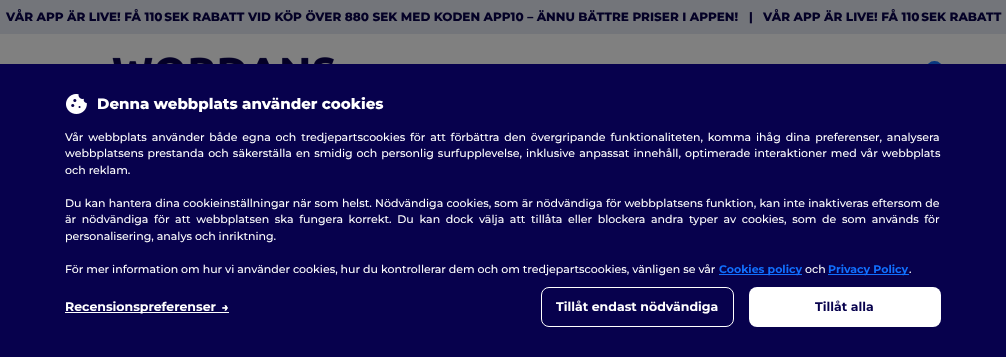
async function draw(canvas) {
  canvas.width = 1006
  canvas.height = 357
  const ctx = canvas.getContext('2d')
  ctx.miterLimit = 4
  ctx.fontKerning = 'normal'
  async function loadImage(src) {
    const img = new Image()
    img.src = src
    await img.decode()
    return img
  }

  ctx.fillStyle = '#808080'
  ctx.fillRect(0, 0, 1006, 357)
  ctx.fillStyle = '#73757a'
  ctx.fillRect(0, 0, 1006, 34)
  ctx.font = '800 12px Montserrat'
  ctx.fillStyle = '#040126'
  ctx.fillText('VÅR APP ÄR LIVE! FÅ 110 SEK RABATT VID KÖP ÖVER 880 SEK MED KODEN APP10 – ÄNNU BÄTTRE PRISER I APPEN!', 6, 21)
  ctx.fillText('|', 749, 21)
  ctx.fillText('VÅR APP ÄR LIVE! FÅ 110 SEK RABATT', 763, 21)
  ctx.drawImage(await loadImage('image0.png'), 112, 57, 222, 7)
  ctx.fillStyle = '#093880'
  ctx.beginPath()
  ctx.roundRect(926, 61, 17, 18, 8.5)
  ctx.fill()
  ctx.fillStyle = '#07014d'
  ctx.fillRect(0, 64, 1006, 293)
  ctx.drawImage(await loadImage('image1.png'), 66, 94, 21, 20)
  ctx.font = '800 15px Montserrat'
  ctx.fillStyle = '#fff'
  ctx.fillText('Denna webbplats använder cookies', 97, 109)
  ctx.wordSpacing = '1.9px'
  ctx.font = '500 11px Montserrat'
  ctx.fillText('Vår webbplats använder både egna och tredjepartscookies för att förbättra den övergripande funktionaliteten, komma ihåg dina preferenser, analysera', 65, 141)
  ctx.wordSpacing = '1.1px'
  ctx.fillText('webbplatsens prestanda och säkerställa en smidig och personlig surfupplevelse, inklusive anpassat innehåll, optimerade interaktioner med vår webbplats', 65, 157)
  ctx.wordSpacing = '0px'
  ctx.fillText('och reklam.', 65, 174)
  ctx.wordSpacing = '0.25px'
  ctx.fillText('Du kan hantera dina cookieinställningar när som helst. Nödvändiga cookies, som är nödvändiga för webbplatsens funktion, kan inte inaktiveras eftersom de', 65, 207)
  ctx.wordSpacing = '2.7px'
  ctx.fillText('är nödvändiga för att webbplatsen ska fungera korrekt. Du kan dock välja att tillåta eller blockera andra typer av cookies, som de som används för', 65, 223)
  ctx.wordSpacing = '0px'
  ctx.fillText('personalisering, analys och inriktning.', 65, 240)
  ctx.fillText('För mer information om hur vi använder cookies, hur du kontrollerar dem och om tredjepartscookies, vänligen se vår', 65, 273)
  ctx.fillStyle = '#1170ff'
  ctx.fillRect(719, 274, 83, 1)
  ctx.font = 'bold 11px Montserrat'
  ctx.fillText('Cookies policy', 719, 273)
  ctx.font = '500 11px Montserrat'
  ctx.fillStyle = '#fff'
  ctx.fillText('och', 805, 273)
  ctx.fillStyle = '#1170ff'
  ctx.fillRect(828, 274, 81, 1)
  ctx.font = 'bold 11px Montserrat'
  ctx.fillText('Privacy Policy', 828, 273)
  ctx.font = '500 11px Montserrat'
  ctx.fillStyle = '#fff'
  ctx.fillText('.', 909, 273)
  ctx.font = 'bold 12.5px Montserrat'
  ctx.fillText('Recensionspreferenser', 65, 311)
  ctx.drawImage(await loadImage('image2.png'), 222, 305, 6, 6)
  ctx.fillRect(65, 312, 164, 1)
  ctx.beginPath()
  ctx.roundRect(541.5, 287.5, 192, 39, 7.5)
  ctx.strokeStyle = '#fff'
  ctx.stroke()
  ctx.fillText('Tillåt endast nödvändiga', 556, 311)
  ctx.beginPath()
  ctx.roundRect(749, 287, 192, 40, 8)
  ctx.fill()
  ctx.fillStyle = '#07014d'
  ctx.fillText('Tillåt alla', 815, 311)
}

draw(document.querySelector('canvas'))
